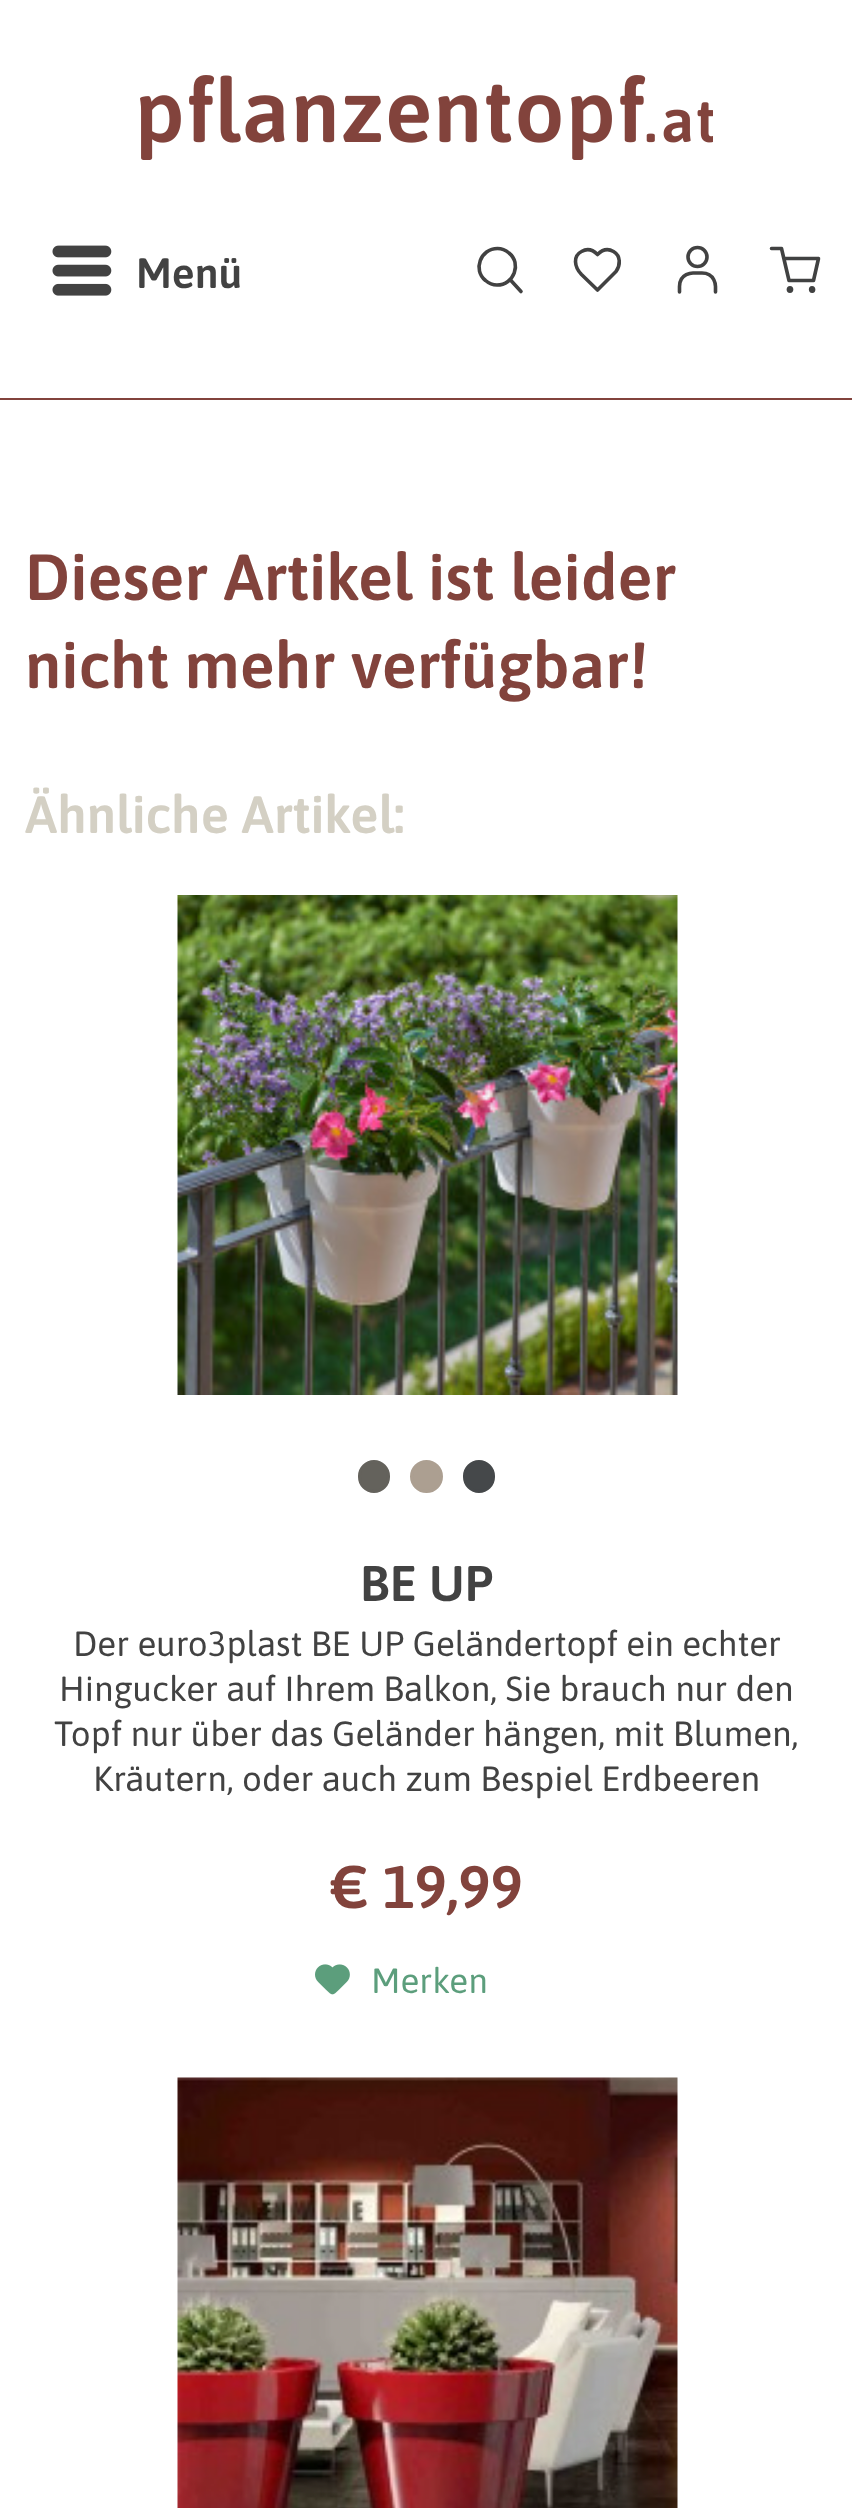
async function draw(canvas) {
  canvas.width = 852
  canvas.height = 2508
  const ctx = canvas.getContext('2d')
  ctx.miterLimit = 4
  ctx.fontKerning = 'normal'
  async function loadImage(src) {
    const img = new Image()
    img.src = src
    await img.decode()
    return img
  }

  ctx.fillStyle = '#fff'
  ctx.fillRect(0, 0, 852, 2508)
  ctx.fillStyle = '#82433c'
  ctx.fillRect(0, 398, 852, 2)
  ctx.drawImage(await loadImage('image0.png'), 140, 75, 573, 85)
  ctx.drawImage(await loadImage('image1.png'), 52, 245, 60, 51)
  ctx.font = '600 42.5px Asap'
  ctx.fillStyle = '#424242'
  ctx.fillText('Menü', 136, 288)
  ctx.beginPath()
  ctx.moveTo(497, 285)
  ctx.bezierCurveTo(514, 285, 522, 263.5, 509, 253)
  ctx.bezierCurveTo(505.5, 250, 501.5, 248.5, 497.5, 248.5)
  ctx.bezierCurveTo(480.5, 248.5, 472.5, 270, 485.5, 280.5)
  ctx.bezierCurveTo(489, 283.5, 493, 285, 497, 285)
  ctx.closePath()
  ctx.strokeStyle = '#424242'
  ctx.lineWidth = 3.6
  ctx.lineJoin = 'round'
  ctx.stroke()
  ctx.beginPath()
  ctx.moveTo(510.5, 280)
  ctx.lineTo(521, 291.5)
  ctx.lineCap = 'round'
  ctx.stroke()
  ctx.beginPath()
  ctx.moveTo(613.5, 251.5)
  ctx.bezierCurveTo(606.5, 247.5, 600.5, 251.5, 597.5, 254.5)
  ctx.bezierCurveTo(594.5, 251.5, 588.5, 247.5, 581.5, 251.5)
  ctx.bezierCurveTo(573, 256, 574, 266.5, 581.5, 274.5)
  ctx.lineTo(597.5, 290)
  ctx.lineTo(616, 271.5)
  ctx.bezierCurveTo(620.5, 265, 621, 256, 613.5, 251.5)
  ctx.closePath()
  ctx.lineCap = 'butt'
  ctx.stroke()
  ctx.beginPath()
  ctx.arc(697.5, 257, 9.5, 0, 2 * Math.PI)
  ctx.stroke()
  ctx.beginPath()
  ctx.moveTo(715.5, 292)
  ctx.lineTo(715.5, 286.5)
  ctx.bezierCurveTo(715.5, 286.5, 715.5, 273, 702, 273)
  ctx.lineTo(693, 273)
  ctx.bezierCurveTo(693, 273, 679.5, 273, 679.5, 286.5)
  ctx.lineTo(679.5, 292)
  ctx.lineCap = 'round'
  ctx.stroke()
  ctx.fillStyle = '#414242'
  ctx.beginPath()
  ctx.moveTo(790, 293)
  ctx.bezierCurveTo(794.5, 293, 794.5, 286, 790, 286)
  ctx.bezierCurveTo(785.5, 286, 785.5, 293, 790, 293)
  ctx.moveTo(812.5, 293)
  ctx.bezierCurveTo(816.5, 293, 816.5, 286, 812, 286)
  ctx.bezierCurveTo(807.5, 286, 808, 293.5, 812.5, 293)
  ctx.fill()
  ctx.beginPath()
  ctx.moveTo(771.5, 248.5)
  ctx.lineTo(781.5, 248.5)
  ctx.lineTo(789, 280.5)
  ctx.lineTo(813.5, 280.5)
  ctx.lineTo(818.5, 258.5)
  ctx.lineTo(784, 258.5)
  ctx.strokeStyle = '#414242'
  ctx.stroke()
  ctx.font = '600 65px Asap'
  ctx.fillStyle = '#82433c'
  ctx.fillText('Dieser Artikel ist leider', 25, 600)
  ctx.fillText('nicht mehr verfügbar!', 25, 688)
  ctx.font = '600 52.5px Asap'
  ctx.fillStyle = '#d4d0c4'
  ctx.fillText('Ähnliche Artikel:', 25, 833)
  ctx.drawImage(await loadImage('image2.png'), 177, 895, 501, 500)
  ctx.fillStyle = '#64625c'
  ctx.beginPath()
  ctx.roundRect(359.5, 1461.5, 29, 30, 14.5)
  ctx.fill()
  ctx.strokeStyle = '#64625c'
  ctx.lineWidth = 3
  ctx.lineJoin = 'miter'
  ctx.stroke()
  ctx.fillStyle = '#ac9f91'
  ctx.beginPath()
  ctx.arc(426.5, 1476.5, 15, 0, 2 * Math.PI)
  ctx.fill()
  ctx.strokeStyle = '#ac9f91'
  ctx.stroke()
  ctx.fillStyle = '#45484a'
  ctx.beginPath()
  ctx.roundRect(464.5, 1461.5, 29, 30, 14.5)
  ctx.fill()
  ctx.strokeStyle = '#45484a'
  ctx.stroke()
  ctx.font = '600 50px Asap'
  ctx.fillStyle = '#424242'
  ctx.fillText('BE UP', 360, 1601)
  ctx.font = '35px Asap'
  ctx.fillText('Der euro3plast BE UP Geländertopf ein echter', 73, 1656)
  ctx.fillText('Hingucker auf Ihrem Balkon, Sie brauch nur den', 59, 1701)
  ctx.fillText('Topf nur über das Geländer hängen, mit Blumen,', 54, 1746)
  ctx.fillText('Kräutern, oder auch zum Bespiel Erdbeeren', 93, 1791)
  ctx.font = '600 60px Asap'
  ctx.fillStyle = '#82433c'
  ctx.fillText('€ 19,99', 331, 1908)
  ctx.drawImage(await loadImage('image3.png'), 315, 1964, 35, 31)
  ctx.font = '35px Asap'
  ctx.fillStyle = '#5c9e7c'
  ctx.fillText('Merken', 371, 1993)
  ctx.drawImage(await loadImage('image4.png'), 177, 2077, 501, 431)
}

draw(document.querySelector('canvas'))
